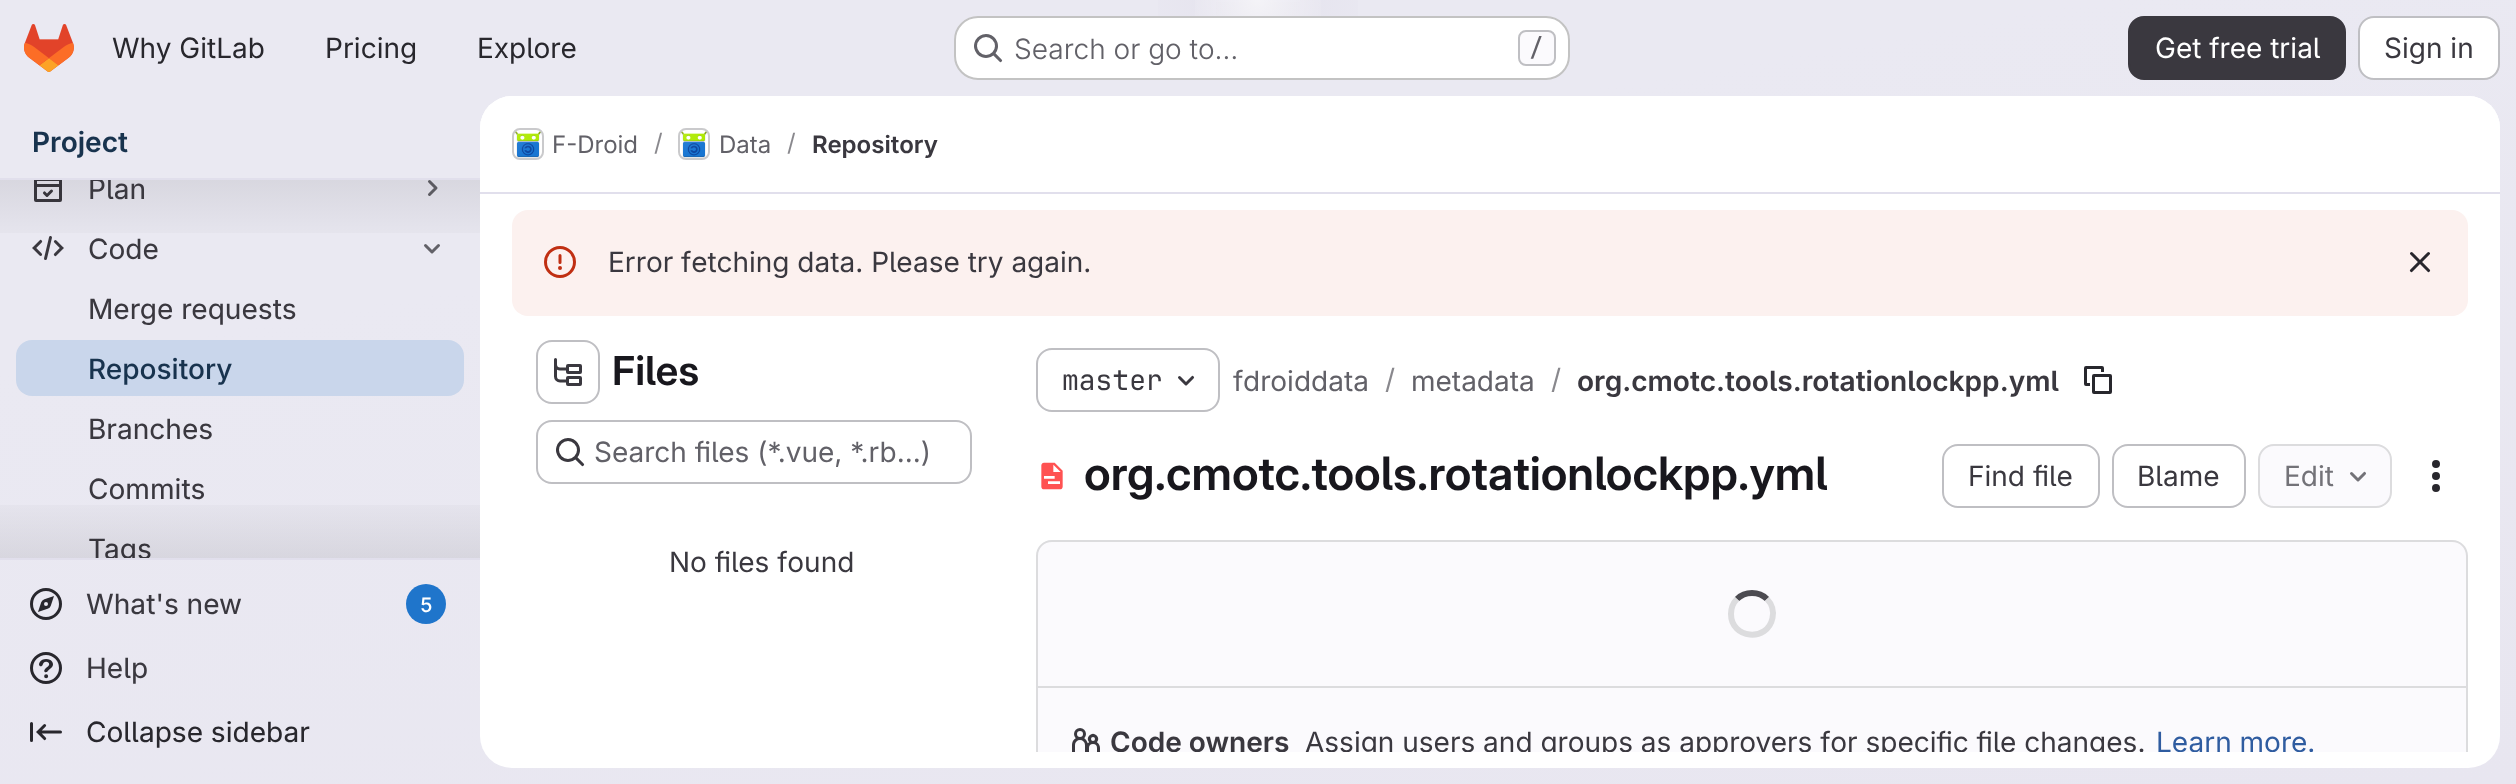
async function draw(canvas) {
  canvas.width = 2516
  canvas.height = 784
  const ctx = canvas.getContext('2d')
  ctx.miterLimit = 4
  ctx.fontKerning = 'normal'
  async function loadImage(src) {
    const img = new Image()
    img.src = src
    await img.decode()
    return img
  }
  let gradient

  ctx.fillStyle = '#fff'
  ctx.fillRect(0, 0, 2516, 784)
  gradient = ctx.createLinearGradient(1363, 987, 1153, -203)
  gradient.addColorStop(0, '#e8e6f0')
  gradient.addColorStop(0.7, '#eae9f2')
  ctx.fillStyle = gradient
  ctx.fillRect(0, 0, 2516, 784)
  gradient = ctx.createRadialGradient(1258, 0, 0, 1258, 0, 1258)
  gradient.addColorStop(0, '#e4e2ed')
  gradient.addColorStop(0.11, '#e4e2ed00')
  ctx.fillStyle = gradient
  ctx.beginPath()
  ctx.rect(1158, 0, 200, 62)
  ctx.save()
  ctx.clip()
  ctx.scale(1, 784 / 1258)
  ctx.fillRect(0, 0, 2516, 1258)
  ctx.restore()
  gradient = ctx.createRadialGradient(1258, 0, 0, 1258, 0, 1258)
  gradient.addColorStop(0, '#e4e2ec')
  gradient.addColorStop(0.08, '#e4e2ec00')
  ctx.fillStyle = gradient
  ctx.beginPath()
  ctx.rect(1216, 2, 84, 14)
  ctx.save()
  ctx.clip()
  ctx.scale(1, 784 / 1258)
  ctx.fillRect(0, 0, 2516, 1258)
  ctx.restore()
  gradient = ctx.createRadialGradient(1258, 0, 0, 1258, 0, 1482)
  gradient.addColorStop(0, '#ffffff99')
  gradient.addColorStop(0.05, '#ffffff00')
  ctx.fillStyle = gradient
  ctx.fillRect(1195, 0, 126, 16)
  ctx.drawImage(await loadImage('image0.png'), 24, 24, 50, 48)
  ctx.font = '28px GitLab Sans'
  ctx.fillStyle = '#28272d'
  ctx.fillText('Why GitLab', 112, 58)
  ctx.fillText('Pricing', 325, 58)
  ctx.fillText('Explore', 477, 58)
  ctx.fillStyle = '#fff'
  ctx.beginPath()
  ctx.roundRect(954, 16, 616, 64, 24)
  ctx.fill()
  ctx.beginPath()
  ctx.roundRect(955, 17, 614, 62, 23)
  ctx.strokeStyle = '#0505063d'
  ctx.lineWidth = 2
  ctx.stroke()
  ctx.drawImage(await loadImage('image1.png'), 974, 34, 29, 29)
  ctx.font = '300 28px GitLab Sans'
  ctx.fillStyle = '#626168'
  ctx.fillText('Search or go to…', 1014, 59)
  ctx.fillStyle = '#fbfafd'
  ctx.beginPath()
  ctx.roundRect(1519, 31, 36, 34, 7)
  ctx.fill()
  ctx.strokeStyle = '#bfbfc3'
  ctx.stroke()
  ctx.font = '500 24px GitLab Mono'
  ctx.fillStyle = '#626168'
  ctx.fillText('/', 1529, 56)
  ctx.fillStyle = '#3a383f'
  ctx.beginPath()
  ctx.roundRect(2129, 17, 216, 62, 15)
  ctx.fill()
  ctx.strokeStyle = '#3a383f'
  ctx.stroke()
  ctx.font = '28px GitLab Sans'
  ctx.fillStyle = '#fff'
  ctx.fillText('Get free trial', 2155, 58)
  ctx.beginPath()
  ctx.roundRect(2359, 17, 140, 62, 15)
  ctx.fill()
  ctx.strokeStyle = '#bfbfc3'
  ctx.stroke()
  ctx.fillStyle = '#3a383f'
  ctx.fillText('Sign in', 2384, 58)
  ctx.font = '600 28px GitLab Sans'
  ctx.fillStyle = '#18334e'
  ctx.fillText('Project', 32, 152)
  ctx.fillStyle = '#e1dfec'
  ctx.fillRect(0, 178, 480, 2)
  ctx.fillRect(0, 558, 480, 2)
  ctx.drawImage(await loadImage('image2.png'), 34, 180, 28, 22)
  ctx.beginPath()
  ctx.moveTo(429.5, 181.5)
  ctx.lineTo(436, 188)
  ctx.lineTo(429.5, 194.5)
  ctx.strokeStyle = '#626168'
  ctx.lineWidth = 3
  ctx.lineCap = 'round'
  ctx.lineJoin = 'round'
  ctx.stroke()
  gradient = ctx.createLinearGradient(240, 180, 240, 252)
  gradient.addColorStop(0, '#05050614')
  gradient.addColorStop(1, '#05050600')
  ctx.fillStyle = gradient
  ctx.fillRect(0, 180, 480, 53)
  ctx.save()
  ctx.beginPath()
  ctx.rect(88, 180, 312, 30)
  ctx.clip()
  ctx.font = '28px "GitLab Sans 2"'
  ctx.fillStyle = '#3a383f'
  ctx.fillText('Plan', 88, 199)
  ctx.restore()
  ctx.drawImage(await loadImage('image3.png'), 32, 236, 32, 24)
  ctx.font = '28px "GitLab Sans 2"'
  ctx.fillStyle = '#3a383f'
  ctx.fillText('Code', 88, 259)
  ctx.beginPath()
  ctx.moveTo(438.5, 245.5)
  ctx.lineTo(432, 252)
  ctx.lineTo(425.5, 245.5)
  ctx.stroke()
  ctx.fillText('Merge requests', 88, 319)
  ctx.fillStyle = '#c9d6eb'
  ctx.beginPath()
  ctx.roundRect(16, 340, 448, 56, 16)
  ctx.fill()
  ctx.font = '500 28px GitLab Sans'
  ctx.fillStyle = '#18334e'
  ctx.fillText('Repository', 88, 379)
  ctx.font = '28px "GitLab Sans 2"'
  ctx.fillStyle = '#3a383f'
  ctx.fillText('Branches', 88, 439)
  ctx.fillText('Commits', 88, 499)
  ctx.save()
  ctx.beginPath()
  ctx.rect(0, 180, 480, 378)
  ctx.clip()
  ctx.fillText('Tags', 88, 559)
  ctx.restore()
  gradient = ctx.createLinearGradient(240, 486, 240, 558)
  gradient.addColorStop(0, '#05050600')
  gradient.addColorStop(1, '#05050614')
  ctx.fillStyle = gradient
  ctx.fillRect(0, 505, 480, 53)
  ctx.drawImage(await loadImage('image4.png'), 30, 588, 32, 32)
  ctx.fillStyle = '#3a383f'
  ctx.fillText('What\'s new', 86, 614)
  ctx.fillStyle = '#1f75cb'
  ctx.beginPath()
  ctx.arc(426, 604, 20, 0, 2 * Math.PI)
  ctx.fill()
  ctx.font = '500 20px GitLab Sans'
  ctx.fillStyle = '#fff'
  ctx.fillText('5', 420, 612)
  ctx.drawImage(await loadImage('image5.png'), 30, 652, 32, 32)
  ctx.font = '28px "GitLab Sans 2"'
  ctx.fillStyle = '#3a383f'
  ctx.fillText('Help', 86, 678)
  ctx.drawImage(await loadImage('image6.png'), 30, 722, 32, 20)
  ctx.fillStyle = '#28272d'
  ctx.fillText('Collapse sidebar', 86, 742)
  ctx.fillStyle = '#fff'
  ctx.beginPath()
  ctx.roundRect(480, 96, 2020, 672, 32)
  ctx.fill()
  ctx.beginPath()
  ctx.roundRect(480, 96, 2020, 98, [32, 32, 0, 0])
  ctx.fill()
  ctx.fillStyle = '#e1dfec'
  ctx.fillRect(480, 192, 2020, 2)
  ctx.beginPath()
  ctx.roundRect(513, 129, 30, 30, 7)
  ctx.strokeStyle = '#dcdcde'
  ctx.lineWidth = 2
  ctx.lineJoin = 'miter'
  ctx.stroke()
  ctx.drawImage(await loadImage('image7.png'), 515, 131, 26, 27)
  ctx.beginPath()
  ctx.roundRect(513, 129, 30, 30, 7)
  ctx.strokeStyle = '#05050614'
  ctx.stroke()
  ctx.font = '24px GitLab Sans'
  ctx.fillStyle = '#626168'
  ctx.fillText('F-Droid', 552, 153)
  ctx.fillStyle = '#89888d'
  ctx.fillText('/', 654, 151)
  ctx.beginPath()
  ctx.roundRect(679, 129, 30, 30, 7)
  ctx.strokeStyle = '#dcdcde'
  ctx.stroke()
  ctx.drawImage(await loadImage('image8.png'), 681, 131, 26, 27)
  ctx.beginPath()
  ctx.roundRect(679, 129, 30, 30, 7)
  ctx.strokeStyle = '#05050614'
  ctx.stroke()
  ctx.fillStyle = '#626168'
  ctx.fillText('Data', 719, 153)
  ctx.fillStyle = '#89888d'
  ctx.fillText('/', 787, 151)
  ctx.font = '600 24px GitLab Sans'
  ctx.fillStyle = '#3a383f'
  ctx.fillText('Repository', 812, 153)
  ctx.fillStyle = '#fcf1ef'
  ctx.beginPath()
  ctx.roundRect(512, 210, 1956, 106, 16)
  ctx.fill()
  ctx.drawImage(await loadImage('image9.png'), 544, 246, 32, 32)
  ctx.font = '28px GitLab Sans'
  ctx.fillStyle = '#3a383f'
  ctx.fillText('Error fetching data. Please try again.', 608, 272)
  ctx.drawImage(await loadImage('image10.png'), 2409, 252, 22, 21)
  ctx.beginPath()
  ctx.roundRect(537, 341, 62, 62, 15)
  ctx.strokeStyle = '#bfbfc3'
  ctx.stroke()
  ctx.drawImage(await loadImage('image11.png'), 554, 358, 28, 28)
  ctx.font = '600 40px "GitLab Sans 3"'
  ctx.fillStyle = '#18171d'
  ctx.fillText('Files', 612, 385)
  ctx.beginPath()
  ctx.roundRect(537, 421, 434, 62, 15)
  ctx.stroke()
  ctx.drawImage(await loadImage('image12.png'), 556, 438, 29, 29)
  ctx.font = '28px GitLab Sans'
  ctx.fillStyle = '#626168'
  ctx.fillText('Search files (*.vue, *.rb...)', 594, 462)
  ctx.fillStyle = '#3a383f'
  ctx.fillText('No files found', 669, 572)
  ctx.beginPath()
  ctx.roundRect(1037, 349, 182, 62, 15)
  ctx.stroke()
  ctx.font = '28px GitLab Mono'
  ctx.fillText('master', 1062, 390)
  ctx.drawImage(await loadImage('image13.png'), 1178, 375, 17, 11)
  ctx.font = '28px GitLab Sans'
  ctx.fillStyle = '#626168'
  ctx.fillText('fdroiddata', 1233, 391)
  ctx.fillStyle = '#89888d'
  ctx.fillText('/', 1385, 389)
  ctx.fillStyle = '#626168'
  ctx.fillText('metadata', 1411, 391)
  ctx.fillStyle = '#89888d'
  ctx.fillText('/', 1551, 389)
  ctx.font = '600 28px GitLab Sans'
  ctx.fillStyle = '#3a383f'
  ctx.fillText('org.cmotc.tools.rotationlockpp.yml', 1577, 391)
  ctx.drawImage(await loadImage('image14.png'), 2084, 366, 28, 28)
  ctx.drawImage(await loadImage('image15.png'), 1041, 462, 22, 28)
  ctx.font = '600 46px "GitLab Sans 2"'
  ctx.fillStyle = '#18171d'
  ctx.fillText('org.cmotc.tools.rotationlockpp.yml', 1084, 490)
  ctx.beginPath()
  ctx.roundRect(1943, 445, 156, 62, 15)
  ctx.stroke()
  ctx.font = '28px GitLab Sans'
  ctx.fillStyle = '#3a383f'
  ctx.fillText('Find file', 1968, 486)
  ctx.beginPath()
  ctx.roundRect(2113, 445, 132, 62, 15)
  ctx.stroke()
  ctx.fillText('Blame', 2137, 486)
  ctx.fillStyle = '#fbfafd'
  ctx.beginPath()
  ctx.roundRect(2259, 445, 132, 62, 15)
  ctx.fill()
  ctx.strokeStyle = '#dcdcde'
  ctx.stroke()
  ctx.fillStyle = '#737278'
  ctx.fillText('Edit', 2284, 486)
  ctx.drawImage(await loadImage('image16.png'), 2350, 471, 16, 11)
  ctx.drawImage(await loadImage('image17.png'), 2432, 460, 8, 32)
  ctx.fillStyle = '#fbfafd'
  ctx.beginPath()
  ctx.roundRect(1036, 540, 1432, 212, [16, 16, 0, 0])
  ctx.fill()
  ctx.save()
  ctx.beginPath()
  ctx.rect(480, 194, 2020, 558)
  ctx.clip()
  ctx.fillStyle = '#dcdcde'
  ctx.beginPath()
  ctx.moveTo(1052, 540)
  ctx.bezierCurveTo(1043, 540, 1036, 547, 1036, 556)
  ctx.lineTo(1036, 768)
  ctx.lineTo(1038, 768)
  ctx.lineTo(1038, 556)
  ctx.bezierCurveTo(1038, 548, 1044, 542, 1052, 542)
  ctx.lineTo(2452, 542)
  ctx.bezierCurveTo(2460, 542, 2466, 548, 2466, 556)
  ctx.lineTo(2466, 768)
  ctx.lineTo(2468, 768)
  ctx.lineTo(2468, 556)
  ctx.bezierCurveTo(2468, 547, 2461, 540, 2452, 540)
  ctx.closePath()
  ctx.fill()
  ctx.restore()
  ctx.beginPath()
  ctx.moveTo(1737, 599)
  ctx.bezierCurveTo(1745, 591, 1759, 591, 1767, 599)
  ctx.strokeStyle = '#4c4b51'
  ctx.lineWidth = 6
  ctx.lineCap = 'butt'
  ctx.stroke()
  ctx.beginPath()
  ctx.moveTo(1767, 599)
  ctx.bezierCurveTo(1772, 604, 1774, 611.5, 1772.5, 618)
  ctx.bezierCurveTo(1767.5, 642.5, 1731, 639, 1731, 614)
  ctx.bezierCurveTo(1731, 608.5, 1733, 603, 1737, 599)
  ctx.strokeStyle = '#dcdcde'
  ctx.stroke()
  ctx.fillStyle = '#dcdcde'
  ctx.fillRect(1038, 686, 1428, 2)
  ctx.drawImage(await loadImage('image18.png'), 1072, 728, 28, 24)
  ctx.save()
  ctx.beginPath()
  ctx.rect(480, 194, 2020, 558)
  ctx.clip()
  ctx.font = '600 28px GitLab Sans'
  ctx.fillStyle = '#3a383f'
  ctx.fillText('Code owners', 1110, 752)
  ctx.font = '28px GitLab Sans'
  ctx.fillText('Assign users and groups as approvers for specific file changes.', 1305, 752)
  ctx.fillStyle = '#2f5ca0'
  ctx.fillText('Learn more.', 2156, 752)
  ctx.restore()
}

draw(document.querySelector('canvas'))
